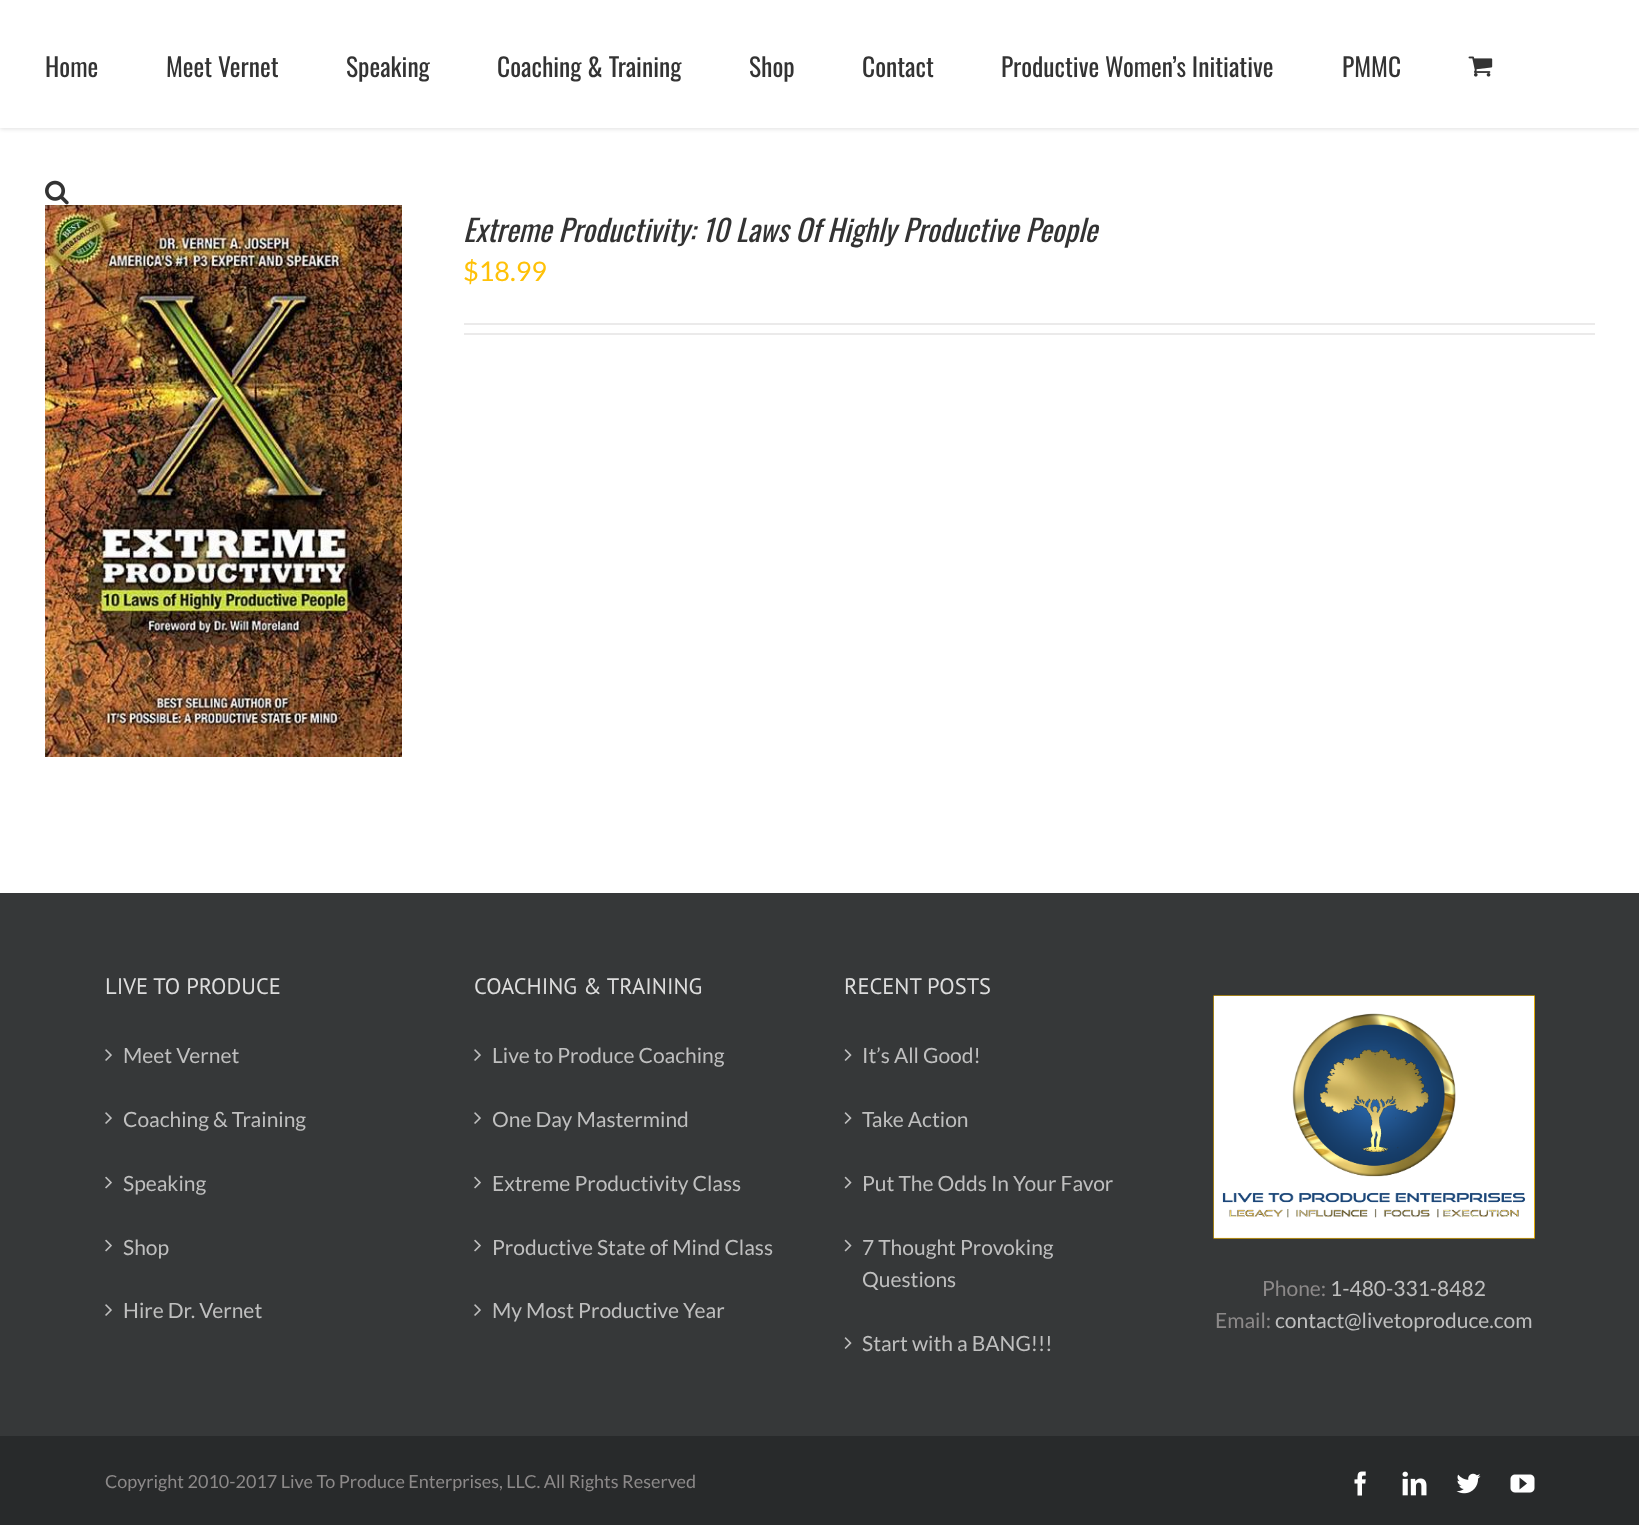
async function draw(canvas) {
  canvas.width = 1639
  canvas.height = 1525
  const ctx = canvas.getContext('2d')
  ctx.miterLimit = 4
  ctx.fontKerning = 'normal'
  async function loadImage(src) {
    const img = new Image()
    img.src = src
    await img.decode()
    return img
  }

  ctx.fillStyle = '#fff'
  ctx.fillRect(0, 0, 1639, 1525)
  ctx.fillStyle = '#0000001f'
  ctx.filter = 'blur(2px)'
  ctx.beginPath()
  ctx.rect(0, 2, 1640, 127)
  ctx.fill()
  ctx.filter = 'none'
  ctx.fillStyle = '#fff'
  ctx.fillRect(0, 0, 1639, 128)
  ctx.font = '25.5px Oswald'
  ctx.fillStyle = '#333'
  ctx.fillText('Home', 45, 77)
  ctx.fillText('Meet Vernet', 166, 77)
  ctx.save()
  ctx.beginPath()
  ctx.rect(347, 0, 150, 126)
  ctx.clip()
  ctx.fillText('Speaking', 346, 77)
  ctx.restore()
  ctx.fillText('Coaching & Training', 497, 77)
  ctx.fillText('Shop', 749, 77)
  ctx.fillText('Contact', 862, 77)
  ctx.fillText('Productive Women’s Initiative', 1001, 77)
  ctx.fillText('PMMC', 1342, 77)
  ctx.drawImage(await loadImage('image0.png'), 1468, 56, 25, 21)
  ctx.drawImage(await loadImage('image1.png'), 45, 180, 24, 25)
  ctx.drawImage(await loadImage('image2.png'), 45, 205, 357, 552)
  ctx.font = 'italic 30px Oswald'
  ctx.fillText('Extreme Productivity: 10 Laws Of Highly Productive People', 463, 242)
  ctx.font = '27px Lato'
  ctx.fillStyle = '#ffc107'
  ctx.fillText('$18.99', 463, 281)
  ctx.fillStyle = '#ebeaea'
  ctx.fillRect(464, 323, 1131, 2)
  ctx.fillRect(464, 333, 1131, 2)
  ctx.fillStyle = '#363839'
  ctx.fillRect(0, 893, 1639, 543)
  ctx.font = '22.5px PT Sans'
  ctx.fillStyle = '#ddd'
  ctx.fillText('LIVE TO PRODUCE', 105, 994)
  ctx.drawImage(await loadImage('image3.png'), 105, 1049, 7, 12)
  ctx.font = '21px Lato'
  ctx.fillStyle = '#bfbfbf'
  ctx.fillText('Meet Vernet', 123, 1063)
  ctx.drawImage(await loadImage('image3.png'), 105, 1112, 7, 12)
  ctx.fillText('Coaching & Training', 123, 1127)
  ctx.drawImage(await loadImage('image4.png'), 105, 1176, 7, 13)
  ctx.fillText('Speaking', 123, 1191)
  ctx.drawImage(await loadImage('image4.png'), 105, 1239, 7, 13)
  ctx.fillText('Shop', 123, 1255)
  ctx.drawImage(await loadImage('image3.png'), 105, 1304, 7, 12)
  ctx.fillText('Hire Dr. Vernet', 123, 1318)
  ctx.font = '22.5px PT Sans'
  ctx.fillStyle = '#ddd'
  ctx.fillText('COACHING & TRAINING', 474, 994)
  ctx.drawImage(await loadImage('image3.png'), 474, 1049, 7, 12)
  ctx.font = '21px Lato'
  ctx.fillStyle = '#bfbfbf'
  ctx.fillText('Live to Produce Coaching', 492, 1063)
  ctx.drawImage(await loadImage('image3.png'), 474, 1112, 7, 12)
  ctx.fillText('One Day Mastermind', 492, 1127)
  ctx.drawImage(await loadImage('image4.png'), 474, 1176, 7, 13)
  ctx.fillText('Extreme Productivity Class', 492, 1191)
  ctx.drawImage(await loadImage('image4.png'), 474, 1239, 7, 13)
  ctx.fillText('Productive State of Mind Class', 492, 1255)
  ctx.drawImage(await loadImage('image3.png'), 474, 1304, 7, 12)
  ctx.fillText('My Most Productive Year', 492, 1318)
  ctx.font = '22.5px PT Sans'
  ctx.fillStyle = '#ddd'
  ctx.fillText('RECENT POSTS', 844, 994)
  ctx.drawImage(await loadImage('image5.png'), 844, 1049, 8, 12)
  ctx.font = '21px Lato'
  ctx.fillStyle = '#bfbfbf'
  ctx.fillText('It’s All Good!', 862, 1063)
  ctx.drawImage(await loadImage('image5.png'), 844, 1112, 8, 12)
  ctx.fillText('Take Action', 862, 1127)
  ctx.drawImage(await loadImage('image6.png'), 844, 1176, 8, 13)
  ctx.fillText('Put The Odds In Your Favor', 862, 1191)
  ctx.drawImage(await loadImage('image6.png'), 844, 1239, 8, 13)
  ctx.fillText('7 Thought Provoking', 862, 1255)
  ctx.fillText('Questions', 862, 1287)
  ctx.drawImage(await loadImage('image5.png'), 844, 1337, 8, 12)
  ctx.fillText('Start with a BANG!!!', 862, 1351)
  ctx.drawImage(await loadImage('image7.png'), 1213, 995, 322, 244)
  ctx.fillStyle = '#8c8989'
  ctx.fillText('Phone:', 1262, 1296)
  ctx.fillStyle = '#bfbfbf'
  ctx.fillText('1-480-331-8482', 1330, 1296)
  ctx.fillStyle = '#8c8989'
  ctx.fillText('Email:', 1215, 1328)
  ctx.fillStyle = '#bfbfbf'
  ctx.fillText('contact@livetoproduce.com', 1275, 1328)
  ctx.fillStyle = '#282a2b'
  ctx.fillRect(0, 1436, 1639, 89)
  ctx.font = '18px Lato'
  ctx.fillStyle = '#8c8989'
  ctx.fillText('Copyright 2010-2017 Live To Produce Enterprises, LLC. All Rights Reserved', 105, 1488)
  ctx.drawImage(await loadImage('image8.png'), 1354, 1471, 12, 25)
  ctx.drawImage(await loadImage('image9.png'), 1402, 1471, 25, 25)
  ctx.drawImage(await loadImage('image10.png'), 1456, 1473, 25, 21)
  ctx.drawImage(await loadImage('image11.png'), 1510, 1474, 25, 19)
}

draw(document.querySelector('canvas'))
